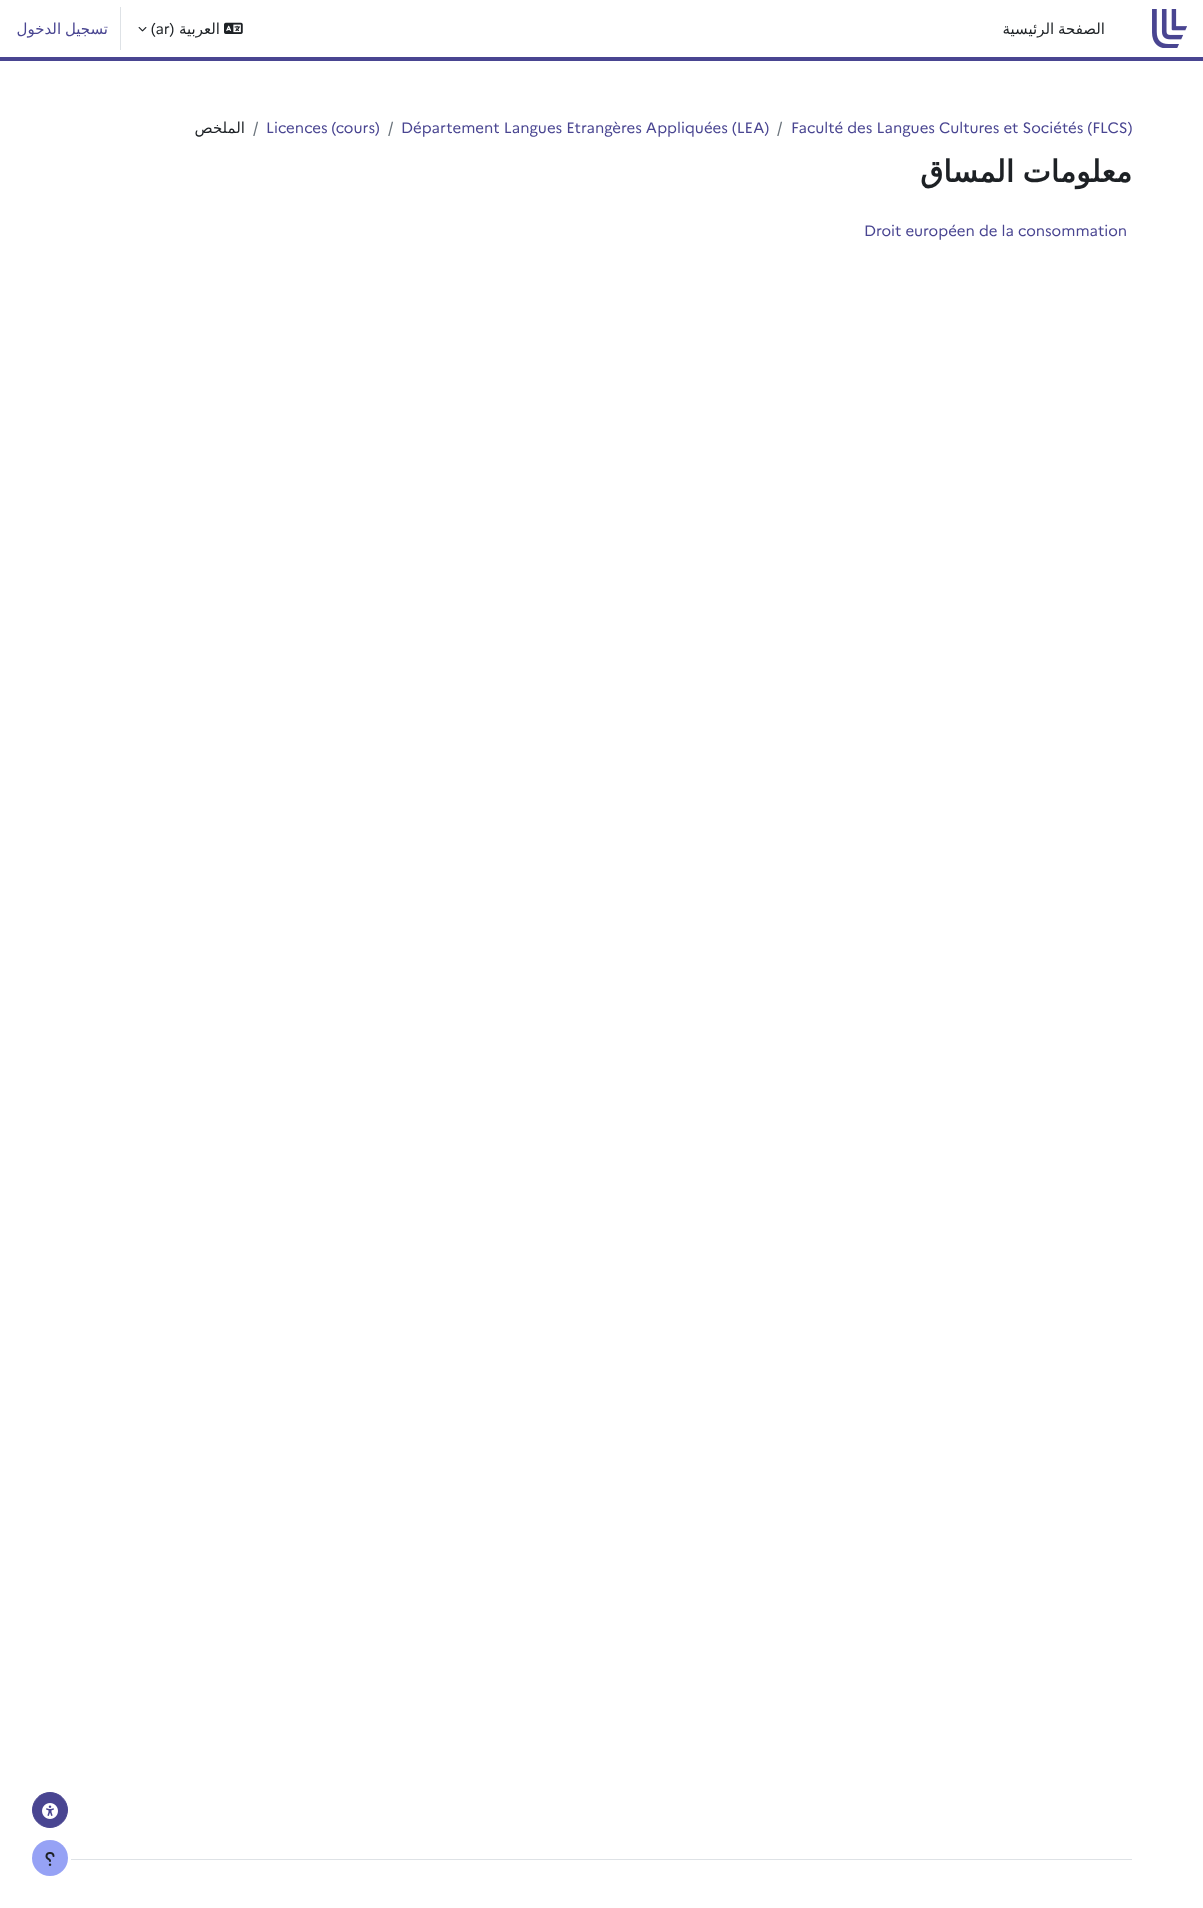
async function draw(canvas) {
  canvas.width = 1203
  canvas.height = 1908
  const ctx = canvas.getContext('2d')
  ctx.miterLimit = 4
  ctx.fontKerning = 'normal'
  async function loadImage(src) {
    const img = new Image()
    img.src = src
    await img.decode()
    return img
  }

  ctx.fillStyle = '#fff'
  ctx.fillRect(0, 0, 1203, 1908)
  ctx.fillStyle = '#494591'
  ctx.fillRect(0, 57, 1203, 4)
  ctx.wordSpacing = '-1px'
  ctx.direction = 'rtl'
  ctx.font = '15px DejaVu Sans'
  ctx.fillText('تسجيل الدخول', 108, 34)
  ctx.fillStyle = '#dee2e6'
  ctx.fillRect(120, 7, 1, 43)
  ctx.drawImage(await loadImage('image0.png'), 138, 27, 9, 5)
  ctx.wordSpacing = '0px'
  ctx.direction = 'ltr'
  ctx.font = '15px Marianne'
  ctx.fillStyle = '#1d2125'
  ctx.fillText('(ar)', 151, 34)
  ctx.direction = 'rtl'
  ctx.font = '15px DejaVu Sans'
  ctx.fillText('العربية', 220, 34)
  ctx.drawImage(await loadImage('image1.png'), 224, 22, 19, 12)
  ctx.wordSpacing = '-1px'
  ctx.fillText('الصفحة الرئيسية', 1105, 34)
  ctx.drawImage(await loadImage('image2.png'), 1152, 9, 35, 39)
  ctx.wordSpacing = '0px'
  ctx.fillText('الملخص', 245, 133)
  ctx.direction = 'ltr'
  ctx.font = '15px Marianne'
  ctx.fillStyle = '#6a737b'
  ctx.fillText('/', 253, 133)
  ctx.fillStyle = '#494591'
  ctx.fillText('Licences (cours)', 266, 133)
  ctx.fillStyle = '#6a737b'
  ctx.fillText('/', 388, 133)
  ctx.fillStyle = '#494591'
  ctx.fillText('Département Langues Etrangères Appliquées (LEA)', 401, 133)
  ctx.fillStyle = '#6a737b'
  ctx.fillText('/', 777, 133)
  ctx.fillStyle = '#494591'
  ctx.fillText('Faculté des Langues Cultures et Sociétés (FLCS)', 791, 133)
  ctx.wordSpacing = '-1px'
  ctx.direction = 'rtl'
  ctx.font = 'bold 30px DejaVu Sans'
  ctx.fillStyle = '#1d2125'
  ctx.fillText('معلومات المساق', 1132, 182)
  ctx.wordSpacing = '0px'
  ctx.direction = 'ltr'
  ctx.font = '15px Marianne'
  ctx.fillStyle = '#494591'
  ctx.fillText('Droit européen de la consommation', 864, 236)
  ctx.beginPath()
  ctx.arc(50, 1810, 17.5, 0, 2 * Math.PI)
  ctx.fill()
  ctx.strokeStyle = '#494591'
  ctx.stroke()
  ctx.drawImage(await loadImage('image3.png'), 42, 1803, 16, 16)
  ctx.fillStyle = '#96a2f5'
  ctx.beginPath()
  ctx.arc(50, 1858, 18, 0, 2 * Math.PI)
  ctx.fill()
  ctx.drawImage(await loadImage('image4.png'), 45, 1852, 10, 14)
  ctx.fillStyle = '#dee2e6'
  ctx.fillRect(71, 1859, 1061, 1)
}

draw(document.querySelector('canvas'))
